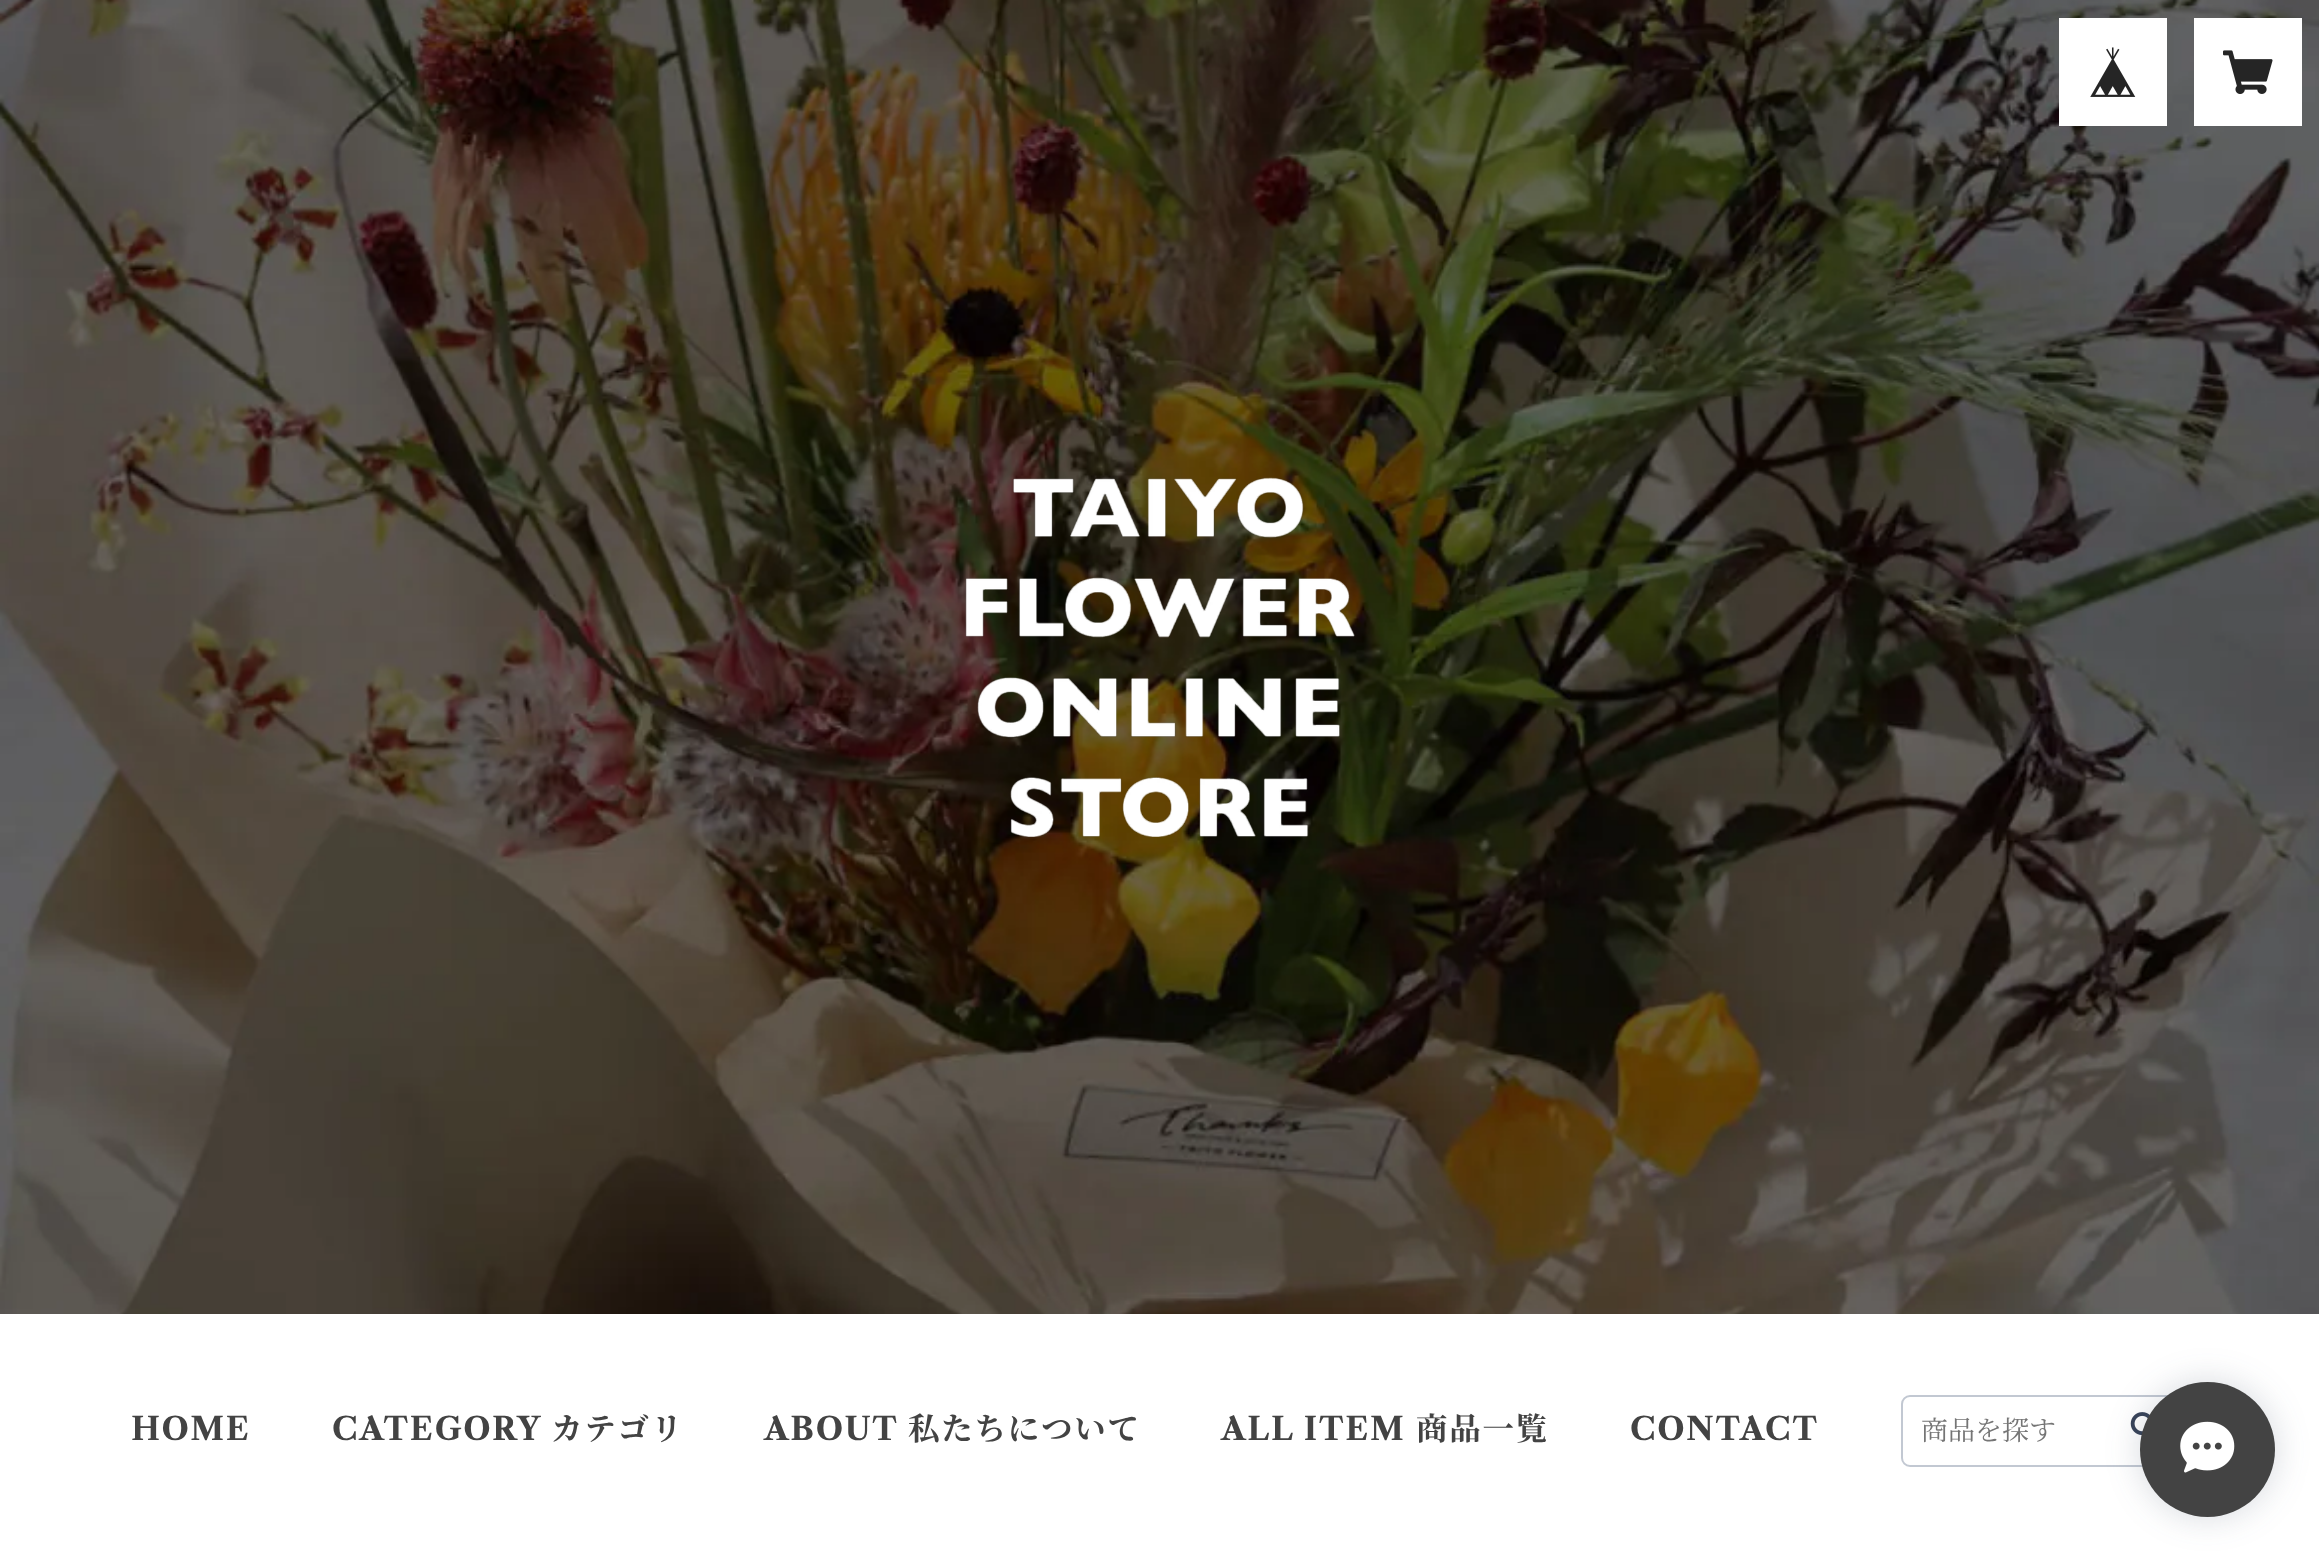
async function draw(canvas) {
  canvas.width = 2319
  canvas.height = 1560
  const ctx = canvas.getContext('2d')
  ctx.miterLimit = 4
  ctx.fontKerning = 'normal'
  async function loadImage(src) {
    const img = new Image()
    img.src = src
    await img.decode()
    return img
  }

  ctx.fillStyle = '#fff'
  ctx.fillRect(0, 0, 2319, 1560)
  ctx.drawImage(await loadImage('image2.png'), 0, 0, 2319, 1314)
  ctx.fillRect(2059, 18, 108, 108)
  ctx.drawImage(await loadImage('image0.png'), 2090, 47, 46, 50)
  ctx.fillRect(2194, 18, 108, 108)
  ctx.drawImage(await loadImage('image1.png'), 2223, 50, 50, 44)
  ctx.drawImage(await loadImage('image3.png'), 965, 477, 390, 360)
  ctx.letterSpacing = '1.75px'
  ctx.font = 'bold 31.5px Libre Caslon Text'
  ctx.fillStyle = '#434343'
  ctx.fillText('HOME', 131, 1440)
  ctx.fillText('CATEGORY', 332, 1440)
  ctx.font = 'bold 31.5px Noto Serif JP'
  ctx.fillText('カテゴリ', 551, 1440)
  ctx.font = 'bold 31.5px Libre Caslon Text'
  ctx.fillText('ABOUT', 764, 1440)
  ctx.font = 'bold 31.5px Noto Serif JP'
  ctx.fillText('私たちについて', 908, 1440)
  ctx.font = 'bold 31.5px Libre Caslon Text'
  ctx.fillText('ALL ITEM', 1221, 1440)
  ctx.font = 'bold 31.5px Noto Serif JP'
  ctx.fillText('商品一覧', 1416, 1440)
  ctx.font = 'bold 31.5px Libre Caslon Text'
  ctx.fillText('CONTACT', 1630, 1440)
  ctx.beginPath()
  ctx.roundRect(1902, 1396, 286, 70, 8)
  ctx.strokeStyle = '#c2c8d2'
  ctx.lineWidth = 2
  ctx.stroke()
  ctx.letterSpacing = '0px'
  ctx.font = '27px Noto Serif JP'
  ctx.fillStyle = '#757575'
  ctx.fillText('商品を探す', 1921, 1440)
  ctx.drawImage(await loadImage('image4.png'), 2130, 1412, 20, 24)
  ctx.fillStyle = '#33425833'
  ctx.filter = 'blur(17px)'
  ctx.beginPath()
  ctx.roundRect(2140, 1382, 135, 135, 67.5)
  ctx.fill()
  ctx.filter = 'none'
  ctx.fillStyle = '#434343'
  ctx.beginPath()
  ctx.arc(2207.5, 1449.5, 67.5, 0, 2 * Math.PI)
  ctx.fill()
  ctx.drawImage(await loadImage('image5.png'), 2180, 1421, 55, 52)
}

draw(document.querySelector('canvas'))
